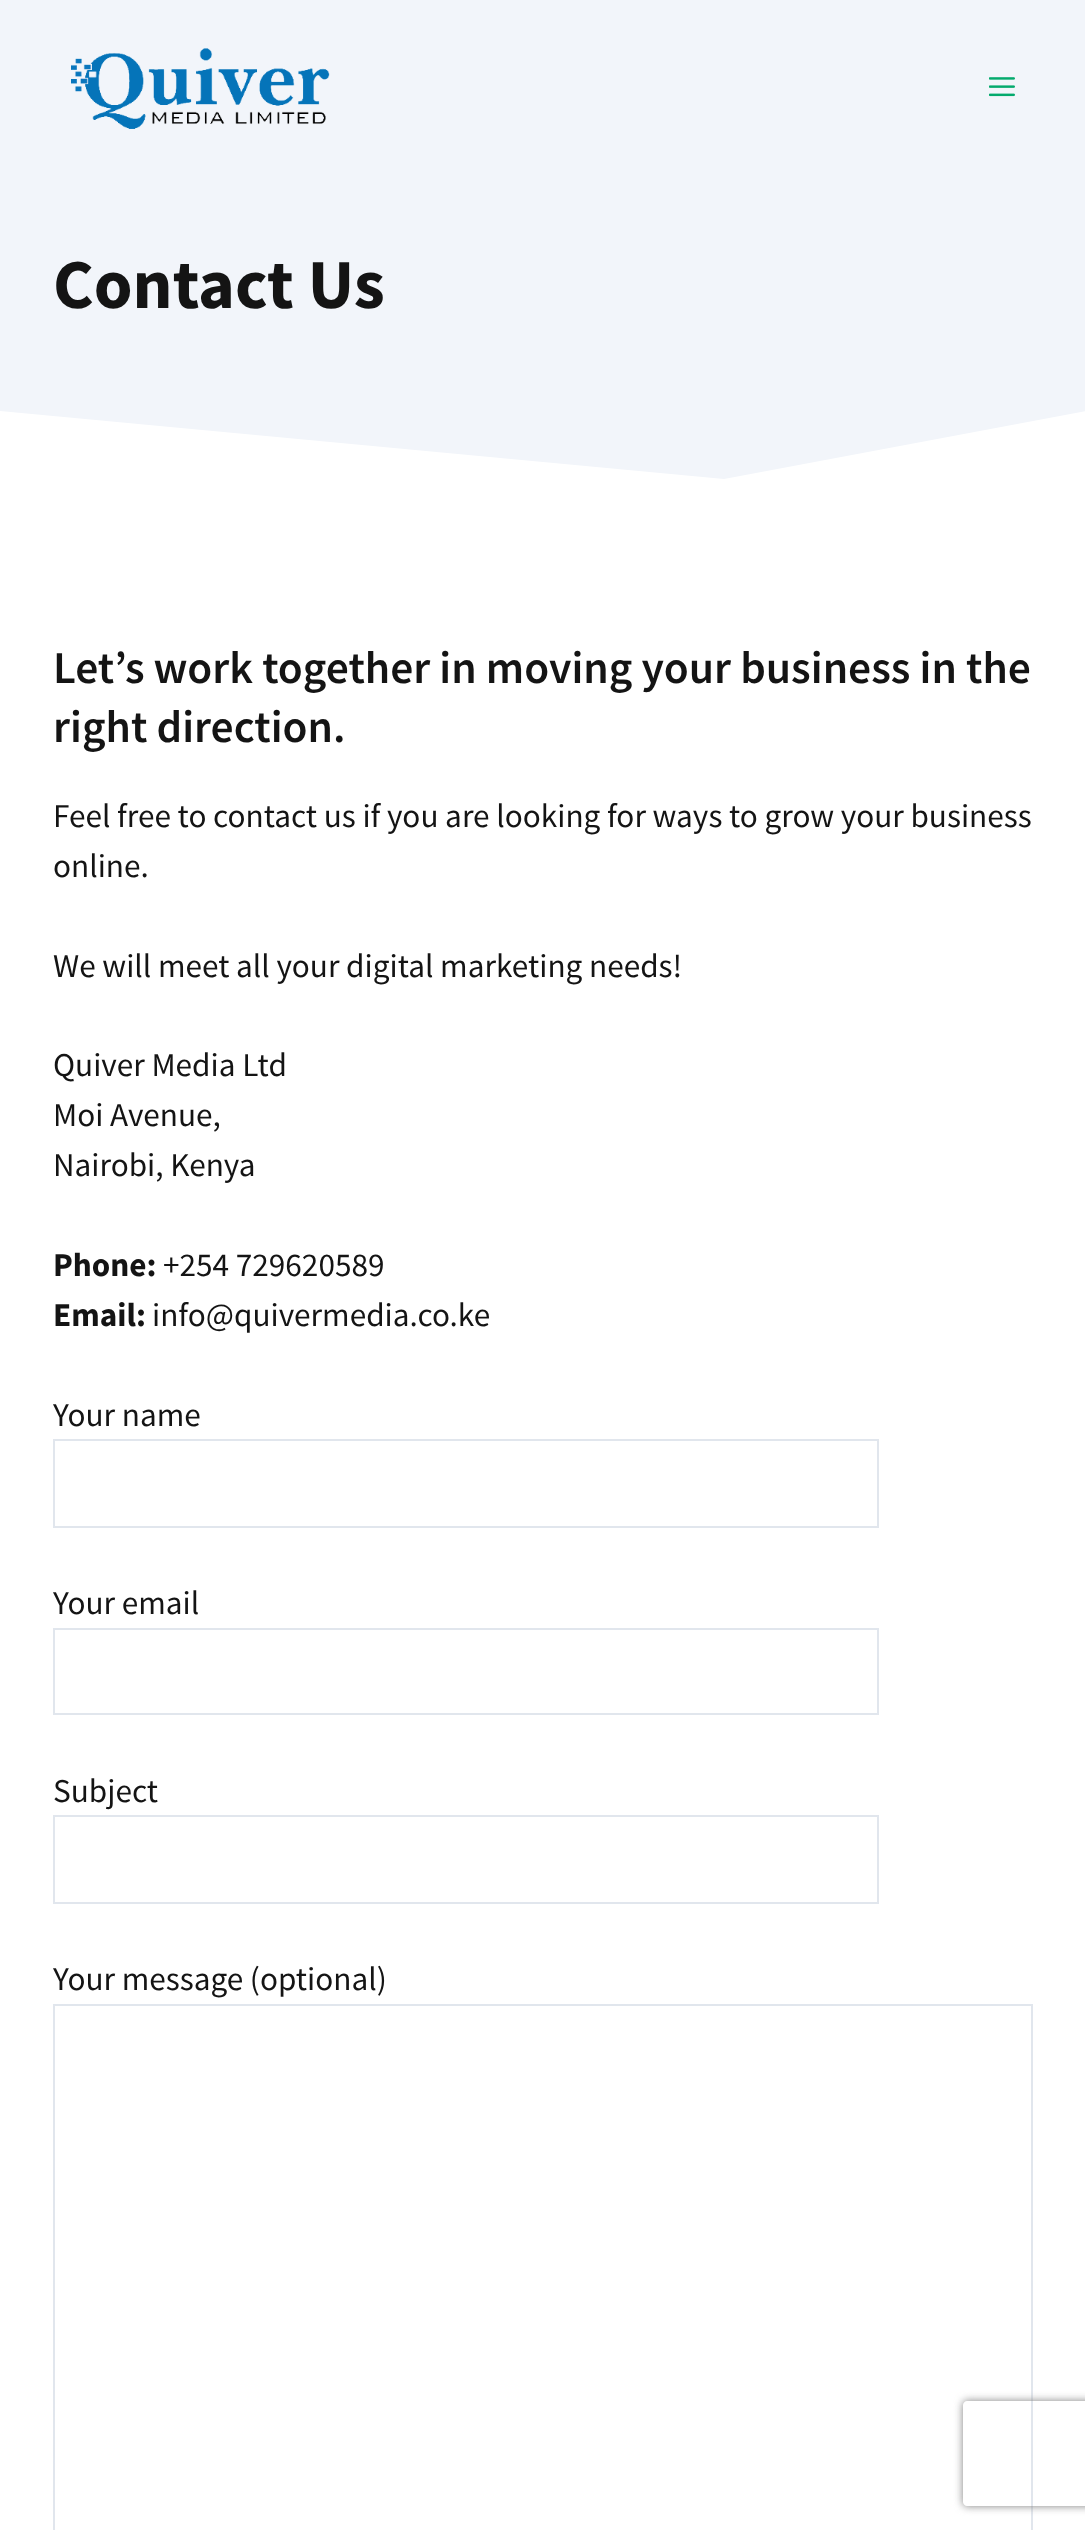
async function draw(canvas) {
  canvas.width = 1085
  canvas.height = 2530
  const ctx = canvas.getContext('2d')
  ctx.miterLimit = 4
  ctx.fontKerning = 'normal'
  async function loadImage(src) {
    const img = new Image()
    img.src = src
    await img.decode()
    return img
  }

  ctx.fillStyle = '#fff'
  ctx.fillRect(0, 0, 1085, 2530)
  ctx.fillStyle = '#f2f5fa'
  ctx.fillRect(0, 0, 1085, 479)
  ctx.drawImage(await loadImage('image0.png'), 71, 48, 259, 81)
  ctx.drawImage(await loadImage('image1.png'), 989, 77, 26, 20)
  ctx.font = 'bold 70px Source Sans Pro'
  ctx.fillStyle = '#141414'
  ctx.fillText('Contact Us', 53, 308)
  ctx.fillStyle = '#fff'
  ctx.beginPath()
  ctx.moveTo(-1, 499)
  ctx.lineTo(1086, 499)
  ctx.lineTo(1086, 411)
  ctx.lineTo(724, 479)
  ctx.lineTo(-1, 411)
  ctx.closePath()
  ctx.fill()
  ctx.font = '600 45.5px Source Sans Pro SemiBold'
  ctx.fillStyle = '#141414'
  ctx.fillText('Let’s work together in moving your business in the', 53, 683)
  ctx.fillText('right direction.', 53, 742)
  ctx.font = '33.25px Source Sans Pro'
  ctx.fillText('Feel free to contact us if you are looking for ways to grow your business', 53, 827)
  ctx.fillText('online.', 53, 877)
  ctx.fillText('We will meet all your digital marketing needs!', 53, 977)
  ctx.fillText('Quiver Media Ltd', 53, 1076)
  ctx.fillText('Moi Avenue,', 53, 1126)
  ctx.fillText('Nairobi, Kenya', 53, 1176)
  ctx.font = 'bold 33.25px Source Sans Pro'
  ctx.fillText('Phone:', 53, 1276)
  ctx.font = '33.25px Source Sans Pro'
  ctx.fillText('+254 729620589', 163, 1276)
  ctx.font = 'bold 33.25px Source Sans Pro'
  ctx.fillText('Email:', 53, 1326)
  ctx.font = '33.25px Source Sans Pro'
  ctx.fillText('info@quivermedia.co.ke', 152, 1326)
  ctx.fillText('Your name', 53, 1426)
  ctx.strokeStyle = '#e1e6ed'
  ctx.lineWidth = 2
  ctx.strokeRect(54, 1440, 824, 87)
  ctx.fillText('Your email', 53, 1614)
  ctx.strokeRect(54, 1629, 824, 85)
  ctx.fillText('Subject', 53, 1802)
  ctx.strokeRect(54, 1816, 824, 87)
  ctx.fillText('Your message (optional)', 53, 1990)
  ctx.strokeRect(54, 2005, 978, 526)
  ctx.save()
  ctx.beginPath()
  ctx.moveTo(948, 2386)
  ctx.lineTo(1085, 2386)
  ctx.lineTo(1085, 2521)
  ctx.lineTo(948, 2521)
  ctx.closePath()
  ctx.moveTo(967, 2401)
  ctx.lineTo(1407, 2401)
  ctx.bezierCurveTo(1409, 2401, 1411, 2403, 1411, 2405)
  ctx.lineTo(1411, 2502)
  ctx.bezierCurveTo(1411, 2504, 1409, 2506, 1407, 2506)
  ctx.lineTo(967, 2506)
  ctx.bezierCurveTo(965, 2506, 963, 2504, 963, 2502)
  ctx.lineTo(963, 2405)
  ctx.bezierCurveTo(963, 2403, 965, 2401, 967, 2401)
  ctx.closePath()
  ctx.clip('evenodd')
  ctx.fillStyle = '#808080'
  ctx.filter = 'blur(4.5px)'
  ctx.beginPath()
  ctx.roundRect(963, 2401, 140, 105, 4)
  ctx.fill()
  ctx.filter = 'none'
  ctx.restore()
}

draw(document.querySelector('canvas'))
